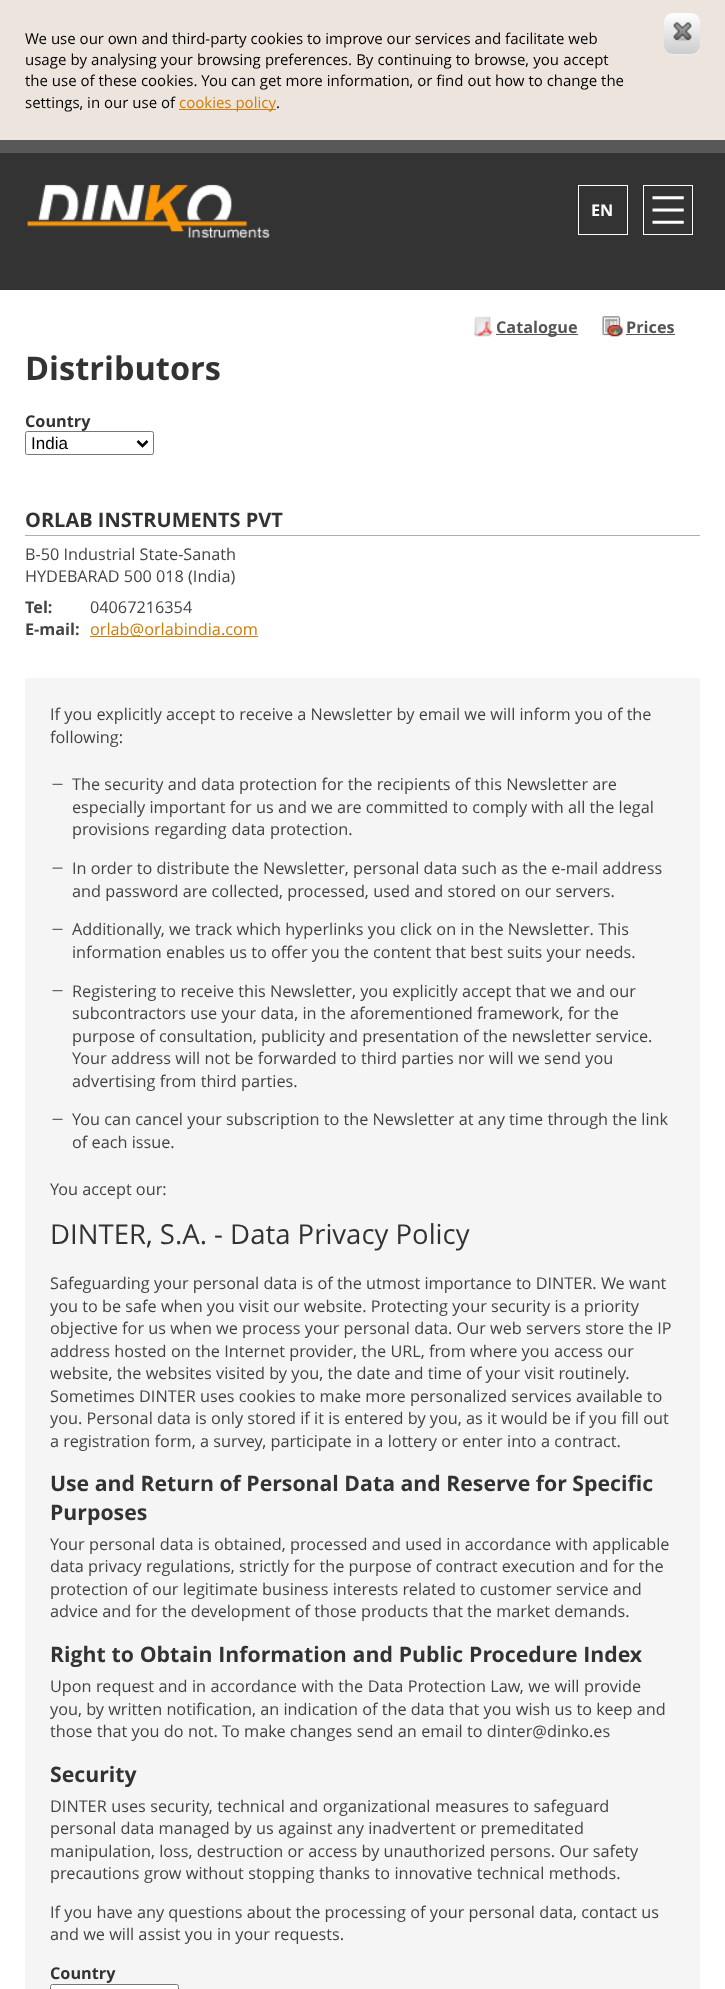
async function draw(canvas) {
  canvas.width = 725
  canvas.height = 1989
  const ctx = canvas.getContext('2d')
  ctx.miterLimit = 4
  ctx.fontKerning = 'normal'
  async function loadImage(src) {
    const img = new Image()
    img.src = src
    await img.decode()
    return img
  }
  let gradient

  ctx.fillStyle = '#585858'
  ctx.fillRect(0, 0, 725, 1989)
  ctx.fillStyle = '#ece4dd'
  ctx.fillRect(0, 0, 725, 140)
  ctx.font = '15px Open Sans'
  ctx.fillStyle = '#000'
  ctx.fillText('We use our own and third-party cookies to improve our services and facilitate web', 25, 44)
  ctx.wordSpacing = '0.25px'
  ctx.fillText('usage by analysing your browsing preferences. By continuing to browse, you accept', 25, 65)
  ctx.wordSpacing = '0px'
  ctx.fillText('the use of these cookies. You can get more information, or find out how to change the', 25, 86)
  ctx.fillText('settings, in our use of', 25, 108)
  ctx.fillStyle = '#d27c02'
  ctx.fillRect(179, 109, 97, 1)
  ctx.fillText('cookies policy', 179, 108)
  ctx.fillStyle = '#000'
  ctx.fillText('.', 276, 108)
  ctx.save()
  ctx.beginPath()
  ctx.rect(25, 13, 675, 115)
  ctx.clip()
  ctx.fillStyle = '#eee'
  ctx.filter = 'blur(2px)'
  ctx.beginPath()
  ctx.roundRect(665, 14, 36, 41, 9)
  ctx.fill()
  ctx.filter = 'none'
  ctx.restore()
  gradient = ctx.createLinearGradient(682, 13, 682, 54)
  gradient.addColorStop(0, '#fff')
  gradient.addColorStop(1, '#ccc')
  ctx.fillStyle = gradient
  ctx.beginPath()
  ctx.roundRect(664, 13, 36, 41, 9)
  ctx.fill()
  ctx.drawImage(await loadImage('image0.png'), 673, 22, 19, 20)
  ctx.fillStyle = '#333'
  ctx.fillRect(0, 153, 725, 137)
  ctx.drawImage(await loadImage('image1.png'), 27, 184, 243, 54)
  ctx.strokeStyle = '#fff'
  ctx.strokeRect(578.5, 185.5, 49, 49)
  ctx.font = 'bold 16.25px Open Sans'
  ctx.fillStyle = '#fff'
  ctx.fillText('EN', 591, 216)
  ctx.strokeRect(643.5, 185.5, 49, 49)
  ctx.drawImage(await loadImage('image2.png'), 652, 196, 32, 28)
  ctx.fillRect(0, 290, 725, 1699)
  ctx.drawImage(await loadImage('image3.png'), 473, 316, 20, 21)
  ctx.fillStyle = '#555'
  ctx.fillRect(496, 334, 82, 1)
  ctx.fillText('Catalogue', 496, 333)
  ctx.drawImage(await loadImage('image4.png'), 602, 316, 21, 21)
  ctx.fillText('Prices', 626, 333)
  ctx.fillRect(626, 334, 49, 1)
  ctx.font = 'bold 32.5px Open Sans'
  ctx.fillStyle = '#333'
  ctx.fillText('Distributors', 25, 380)
  ctx.font = 'bold 16.25px Open Sans'
  ctx.fillText('Country', 25, 427)
  ctx.beginPath()
  ctx.roundRect(25.5, 431.5, 128, 23, 2)
  ctx.strokeStyle = '#767676'
  ctx.stroke()
  ctx.beginPath()
  ctx.moveTo(137.5, 441)
  ctx.lineTo(142.5, 446)
  ctx.lineTo(147.5, 441)
  ctx.strokeStyle = '#000'
  ctx.lineWidth = 2.5
  ctx.stroke()
  ctx.font = '17px Liberation Sans'
  ctx.fillStyle = '#000'
  ctx.fillText('India', 31, 449)
  ctx.fillStyle = '#a4b4a8'
  ctx.fillRect(25, 535, 675, 1)
  ctx.font = 'bold 20px Open Sans'
  ctx.fillStyle = '#333'
  ctx.fillText('ORLAB INSTRUMENTS PVT', 25, 527)
  ctx.font = '16.25px Open Sans'
  ctx.fillStyle = '#444'
  ctx.fillText('B-50 Industrial State-Sanath', 25, 560)
  ctx.fillText('HYDEBARAD 500 018 (India)', 25, 582)
  ctx.font = 'bold 16.25px Open Sans'
  ctx.fillText('Tel:', 25, 613)
  ctx.font = '16.25px Open Sans'
  ctx.fillText('04067216354', 90, 613)
  ctx.font = 'bold 16.25px Open Sans'
  ctx.fillText('E-mail:', 25, 635)
  ctx.fillStyle = '#d27c02'
  ctx.fillRect(90, 636, 168, 1)
  ctx.font = '16.25px Open Sans'
  ctx.fillText('orlab@orlabindia.com', 90, 635)
  ctx.fillStyle = '#f5f5f5'
  ctx.fillRect(25, 678, 675, 1311)
  ctx.fillStyle = '#444'
  ctx.fillText('If you explicitly accept to receive a Newsletter by email we will inform you of the', 50, 720)
  ctx.fillText('following:', 50, 743)
  ctx.drawImage(await loadImage('image5.png'), 52, 783, 11, 2)
  ctx.fillText('The security and data protection for the recipients of this Newsletter are', 72, 790)
  ctx.fillText('especially important for us and we are committed to comply with all the legal', 72, 813)
  ctx.wordSpacing = '0.5px'
  ctx.fillText('provisions regarding data protection.', 72, 835)
  ctx.drawImage(await loadImage('image6.png'), 52, 867, 11, 2)
  ctx.wordSpacing = '0px'
  ctx.fillText('In order to distribute the Newsletter, personal data such as the e-mail address', 72, 874)
  ctx.wordSpacing = '0.1px'
  ctx.fillText('and password are collected, processed, used and stored on our servers.', 72, 897)
  ctx.drawImage(await loadImage('image5.png'), 52, 928, 11, 2)
  ctx.wordSpacing = '0px'
  ctx.fillText('Additionally, we track which hyperlinks you click on in the Newsletter. This', 72, 935)
  ctx.fillText('information enables us to offer you the content that best suits your needs.', 72, 958)
  ctx.drawImage(await loadImage('image7.png'), 52, 990, 11, 2)
  ctx.fillText('Registering to receive this Newsletter, you explicitly accept that we and our', 72, 997)
  ctx.wordSpacing = '0.1px'
  ctx.fillText('subcontractors use your data, in the aforementioned framework, for the', 72, 1019)
  ctx.wordSpacing = '0px'
  ctx.fillText('purpose of consultation, publicity and presentation of the newsletter service.', 72, 1042)
  ctx.wordSpacing = '0.1px'
  ctx.fillText('Your address will not be forwarded to third parties nor will we send you', 72, 1064)
  ctx.wordSpacing = '0px'
  ctx.fillText('advertising from third parties.', 72, 1087)
  ctx.drawImage(await loadImage('image5.png'), 52, 1118, 11, 2)
  ctx.fillText('You can cancel your subscription to the Newsletter at any time through the link', 72, 1125)
  ctx.fillText('of each issue.', 72, 1148)
  ctx.fillText('You accept our:', 50, 1195)
  ctx.font = '27.5px Open Sans'
  ctx.fillStyle = '#333'
  ctx.fillText('DINTER, S.A. - Data Privacy Policy', 50, 1244)
  ctx.font = '16.25px Open Sans'
  ctx.fillStyle = '#444'
  ctx.fillText('Safeguarding your personal data is of the utmost importance to DINTER. We want', 50, 1289)
  ctx.fillText('you to be safe when you visit our website. Protecting your security is a priority', 50, 1312)
  ctx.fillText('objective for us when we process your personal data. Our web servers store the IP', 50, 1334)
  ctx.wordSpacing = '0.1px'
  ctx.fillText('address hosted on the Internet provider, the URL, from where you access our', 50, 1357)
  ctx.wordSpacing = '0px'
  ctx.fillText('website, the websites visited by you, the date and time of your visit routinely.', 50, 1379)
  ctx.fillText('Sometimes DINTER uses cookies to make more personalized services available to', 50, 1402)
  ctx.fillText('you. Personal data is only stored if it is entered by you, as it would be if you fill out', 50, 1424)
  ctx.wordSpacing = '0.1px'
  ctx.fillText('a registration form, a survey, participate in a lottery or enter into a contract.', 50, 1447)
  ctx.wordSpacing = '0px'
  ctx.font = 'bold 21.25px Open Sans'
  ctx.fillStyle = '#333'
  ctx.fillText('Use and Return of Personal Data and Reserve for Specific', 50, 1491)
  ctx.fillText('Purposes', 50, 1520)
  ctx.wordSpacing = '0.1px'
  ctx.font = '16.25px Open Sans'
  ctx.fillStyle = '#444'
  ctx.fillText('Your personal data is obtained, processed and used in accordance with applicable', 50, 1550)
  ctx.wordSpacing = '0px'
  ctx.fillText('data privacy regulations, strictly for the purpose of contract execution and for the', 50, 1572)
  ctx.fillText('protection of our legitimate business interests related to customer service and', 50, 1595)
  ctx.fillText('advice and for the development of those products that the market demands.', 50, 1617)
  ctx.wordSpacing = '0.25px'
  ctx.font = 'bold 21.25px Open Sans'
  ctx.fillStyle = '#333'
  ctx.fillText('Right to Obtain Information and Public Procedure Index', 50, 1662)
  ctx.font = '16.25px Open Sans'
  ctx.fillStyle = '#444'
  ctx.fillText('Upon request and in accordance with the Data Protection Law, we will provide', 50, 1692)
  ctx.wordSpacing = '0px'
  ctx.fillText('you, by written notification, an indication of the data that you wish us to keep and', 50, 1715)
  ctx.wordSpacing = '0.1px'
  ctx.fillText('those that you do not. To make changes send an email to dinter@dinko.es', 50, 1737)
  ctx.wordSpacing = '0px'
  ctx.font = 'bold 21.25px Open Sans'
  ctx.fillStyle = '#333'
  ctx.fillText('Security', 50, 1782)
  ctx.wordSpacing = '0.25px'
  ctx.font = '16.25px Open Sans'
  ctx.fillStyle = '#444'
  ctx.fillText('DINTER uses security, technical and organizational measures to safeguard', 50, 1812)
  ctx.wordSpacing = '0px'
  ctx.fillText('personal data managed by us against any inadvertent or premeditated', 50, 1834)
  ctx.fillText('manipulation, loss, destruction or access by unauthorized persons. Our safety', 50, 1857)
  ctx.wordSpacing = '0.25px'
  ctx.fillText('precautions grow without stopping thanks to innovative technical methods.', 50, 1879)
  ctx.wordSpacing = '0px'
  ctx.fillText('If you have any questions about the processing of your personal data, contact us', 50, 1918)
  ctx.fillText('and we will assist you in your requests.', 50, 1940)
  ctx.font = 'bold 16.25px Open Sans'
  ctx.fillStyle = '#333'
  ctx.fillText('Country', 50, 1979)
  ctx.fillStyle = '#fff'
  ctx.beginPath()
  ctx.roundRect(50.5, 1984.5, 128, 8, 2)
  ctx.fill()
  ctx.strokeStyle = '#767676'
  ctx.lineWidth = 1
  ctx.stroke()
}

draw(document.querySelector('canvas'))
